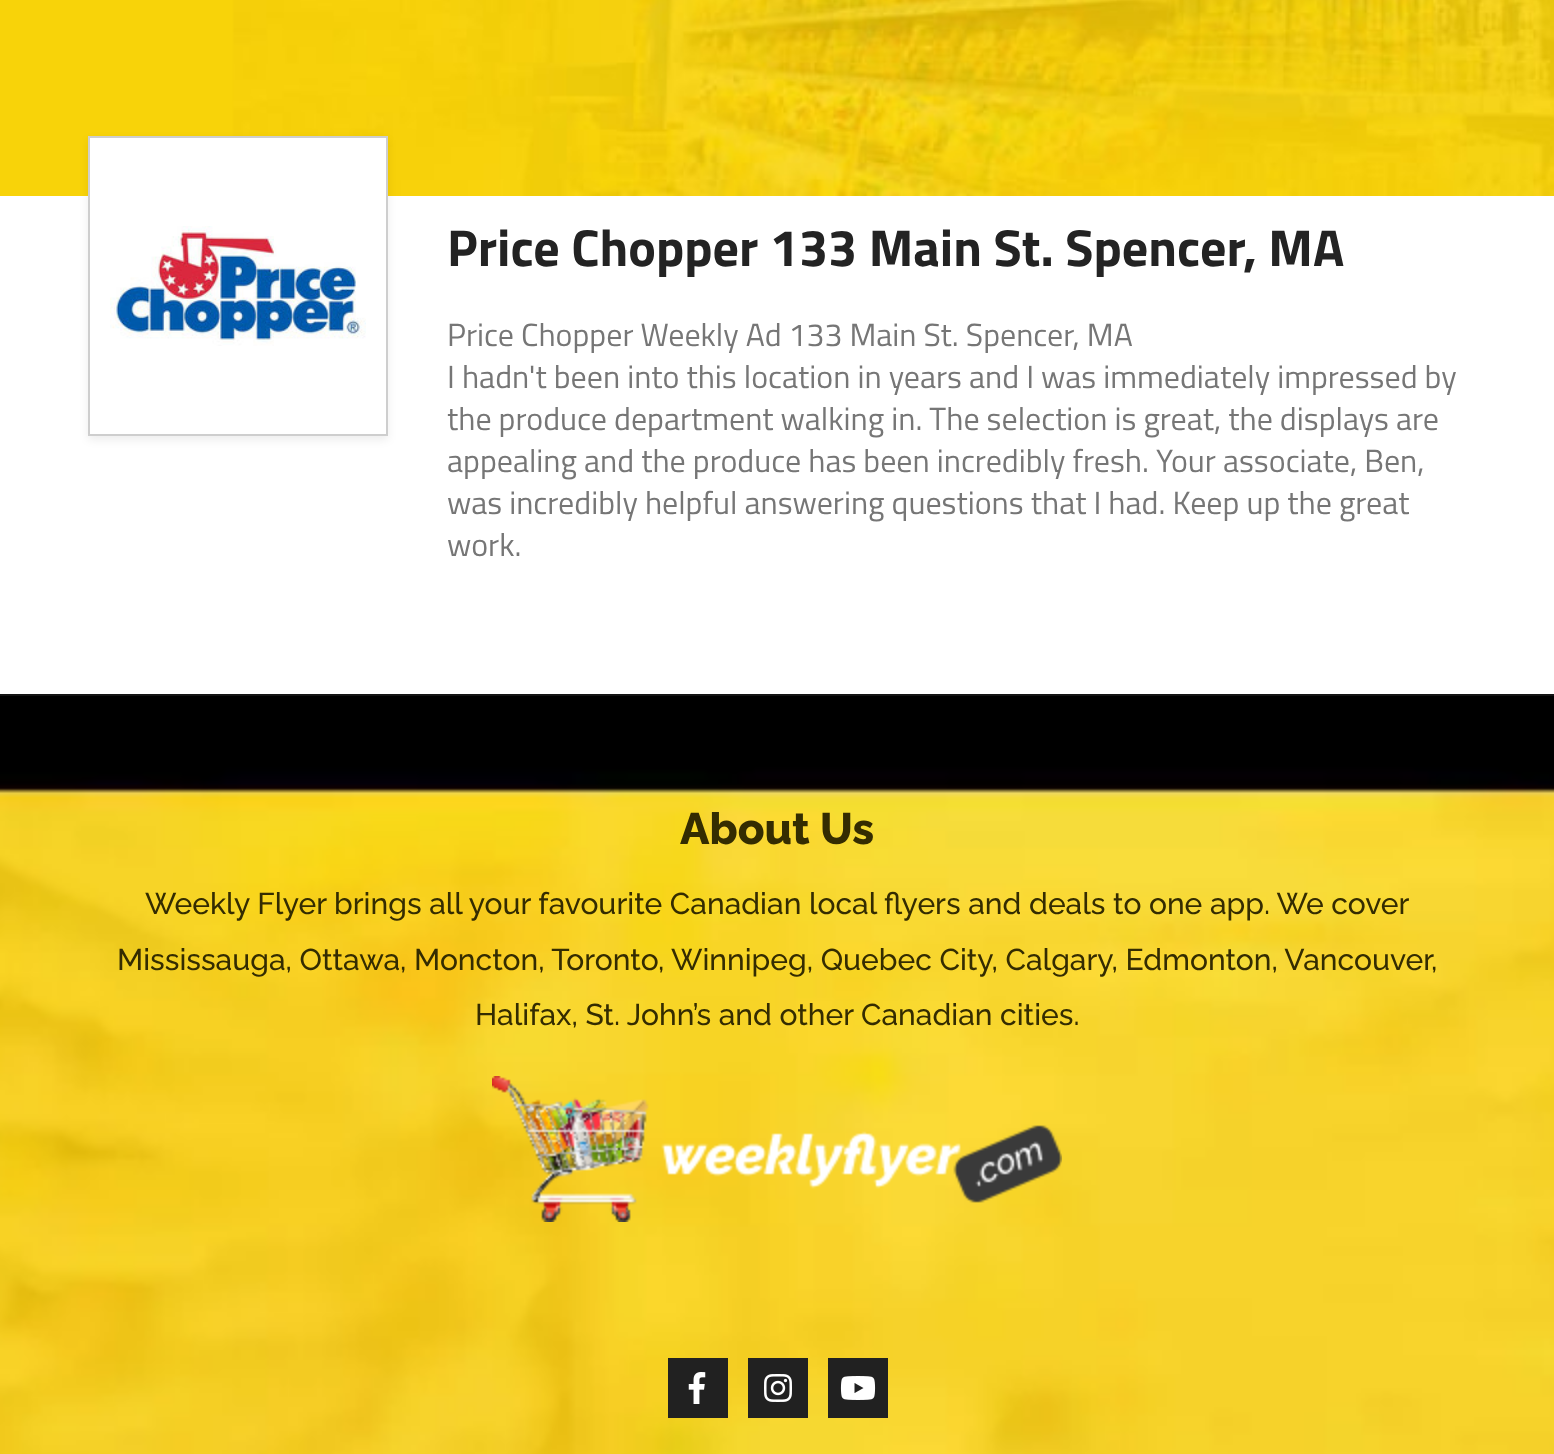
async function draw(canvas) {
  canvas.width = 1554
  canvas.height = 1454
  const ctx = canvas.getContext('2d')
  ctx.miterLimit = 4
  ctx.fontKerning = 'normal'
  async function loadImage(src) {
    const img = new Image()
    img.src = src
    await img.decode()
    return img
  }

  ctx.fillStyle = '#fff'
  ctx.fillRect(0, 0, 1554, 1454)
  ctx.drawImage(await loadImage('image0.png'), 0, 0, 1554, 196)
  ctx.fillStyle = '#00000012'
  ctx.filter = 'blur(4px)'
  ctx.beginPath()
  ctx.rect(88, 140, 300, 300)
  ctx.fill()
  ctx.filter = 'none'
  ctx.fillStyle = '#fff'
  ctx.beginPath()
  ctx.rect(89, 137, 298, 298)
  ctx.fill()
  ctx.strokeStyle = '#cecece'
  ctx.lineWidth = 2
  ctx.stroke()
  ctx.drawImage(await loadImage('image1.png'), 110, 226, 256, 120)
  ctx.font = 'bold 52px Titillium Web'
  ctx.fillStyle = '#232323'
  ctx.fillText('Price Chopper 133 Main St. Spencer, MA', 447, 266)
  ctx.font = '32px Titillium Web'
  ctx.fillStyle = '#767676'
  ctx.fillText('Price Chopper Weekly Ad 133 Main St. Spencer, MA', 447, 346)
  ctx.fillText('I hadn\'t been into this location in years and I was immediately impressed by', 447, 388)
  ctx.fillText('the produce department walking in. The selection is great, the displays are', 447, 430)
  ctx.fillText('appealing and the produce has been incredibly fresh. Your associate, Ben,', 447, 472)
  ctx.fillText('was incredibly helpful answering questions that I had. Keep up the great', 447, 514)
  ctx.fillText('work.', 447, 556)
  ctx.drawImage(await loadImage('image2.png'), 0, 696, 1554, 758)
  ctx.fillStyle = '#131313'
  ctx.fillRect(0, 694, 1554, 2)
  ctx.font = '800 44px Raleway'
  ctx.fillStyle = '#342c01'
  ctx.fillText('About Us', 680, 844)
  ctx.font = '500 30px Raleway'
  ctx.fillText('Weekly Flyer brings all your favourite Canadian local flyers and deals to one app. We cover', 145, 914)
  ctx.fillText('Mississauga, Ottawa, Moncton, Toronto, Winnipeg, Quebec City, Calgary, Edmonton, Vancouver,', 117, 970)
  ctx.fillText('Halifax, St. John’s and other Canadian cities.', 475, 1025)
  ctx.drawImage(await loadImage('image3.png'), 492, 1076, 570, 146)
  ctx.fillStyle = '#212121'
  ctx.fillRect(668, 1358, 60, 60)
  ctx.drawImage(await loadImage('image4.png'), 688, 1372, 18, 32)
  ctx.fillRect(748, 1358, 60, 60)
  ctx.drawImage(await loadImage('image5.png'), 764, 1374, 28, 28)
  ctx.fillRect(828, 1358, 60, 60)
  ctx.drawImage(await loadImage('image6.png'), 840, 1376, 36, 24)
}

draw(document.querySelector('canvas'))
